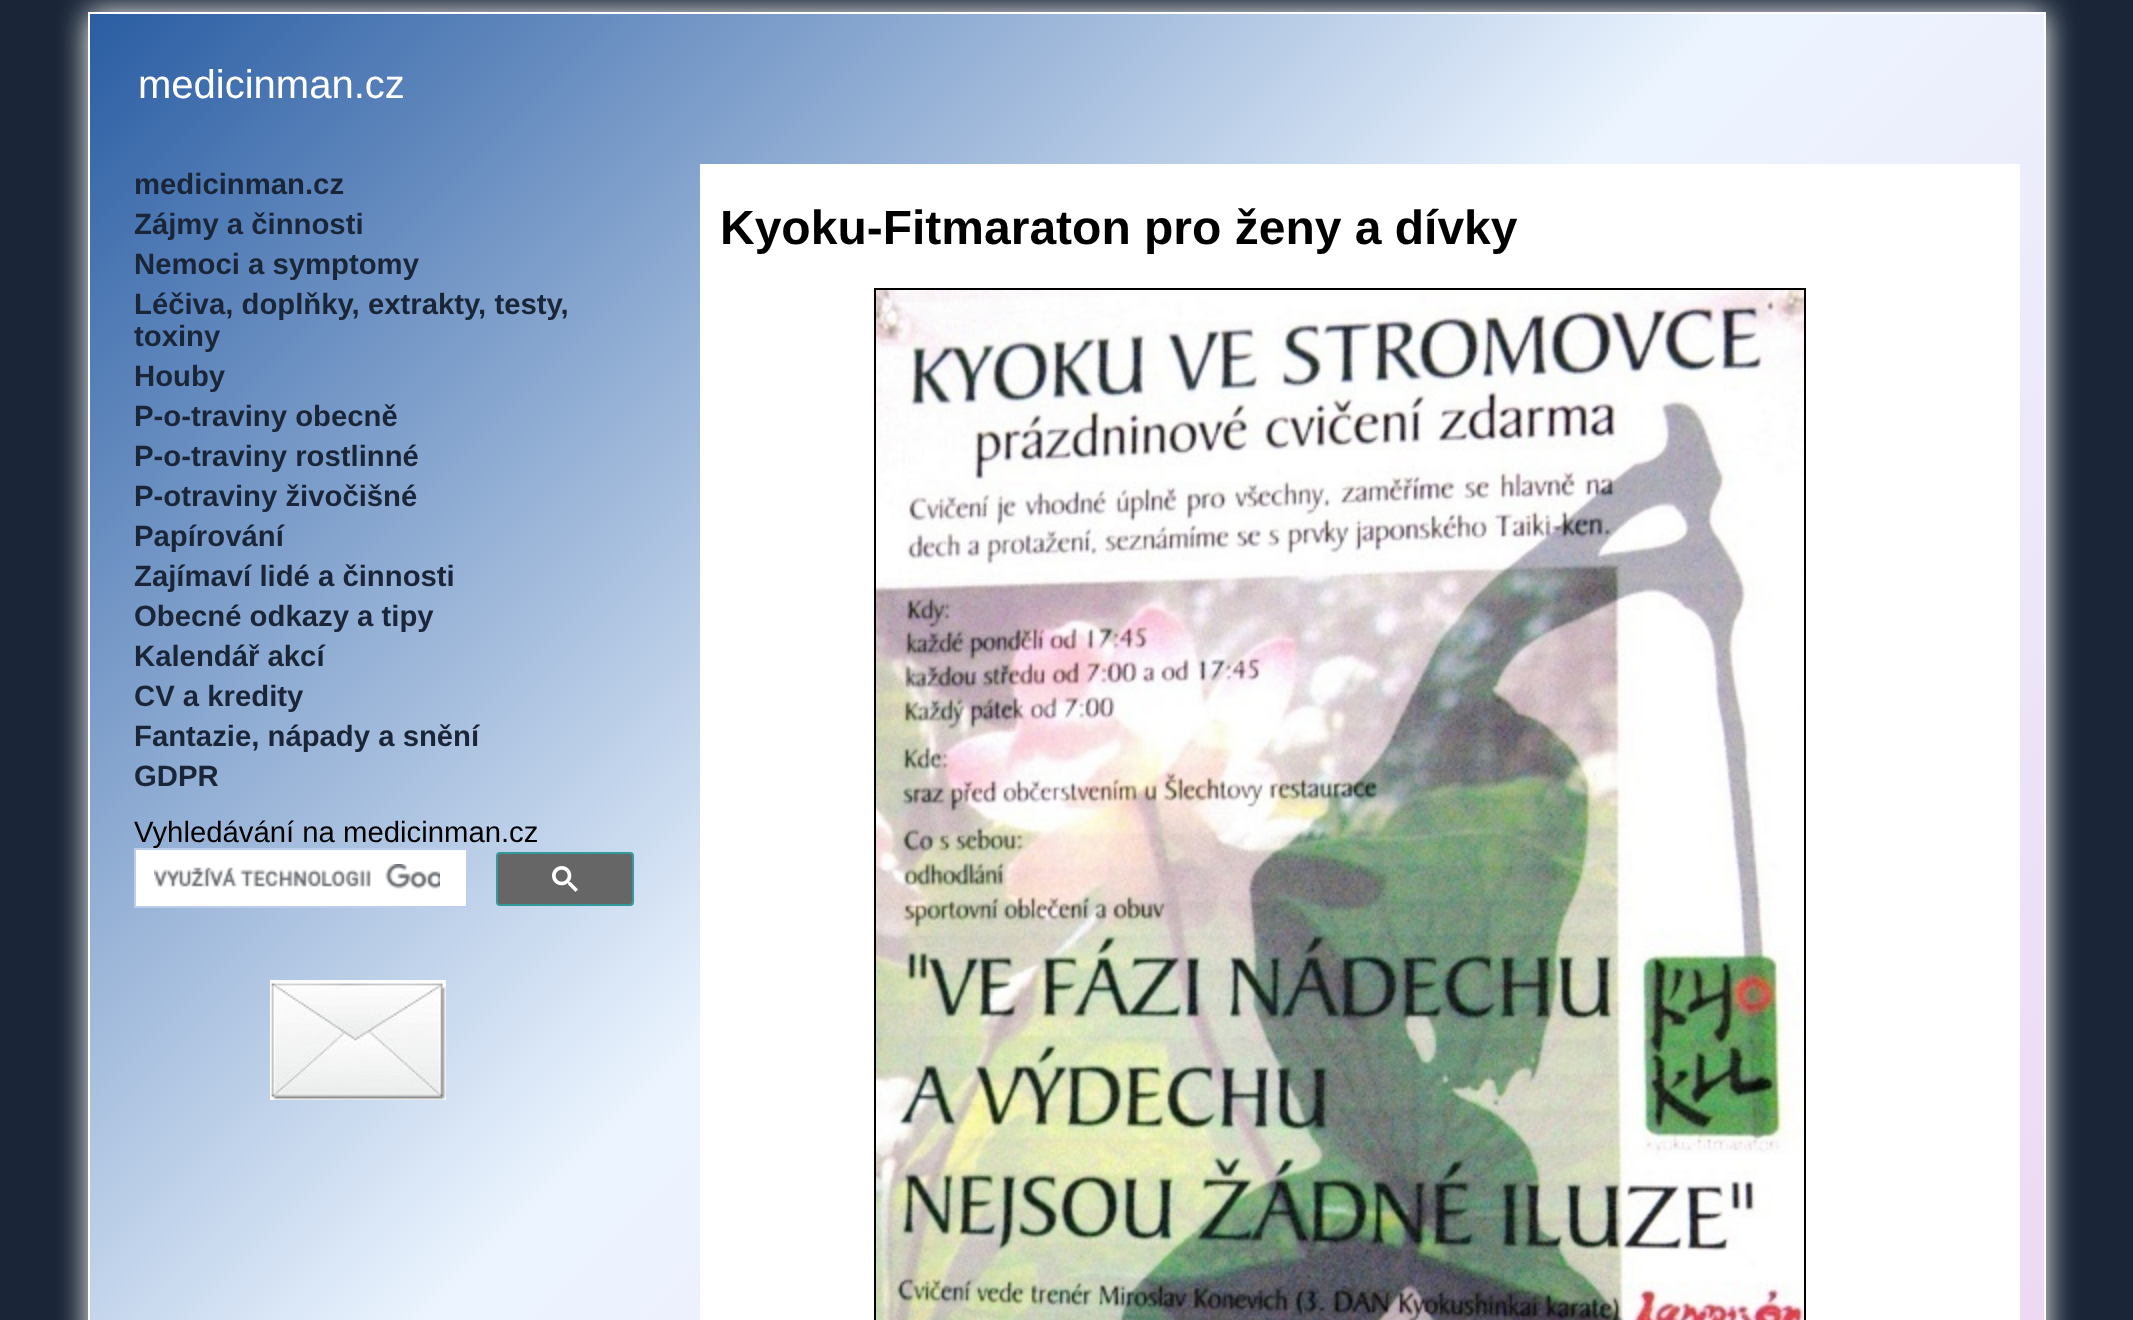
async function draw(canvas) {
  canvas.width = 2133
  canvas.height = 1320
  const ctx = canvas.getContext('2d')
  ctx.miterLimit = 4
  ctx.fontKerning = 'normal'
  async function loadImage(src) {
    const img = new Image()
    img.src = src
    await img.decode()
    return img
  }
  let gradient

  ctx.fillStyle = '#1a2638'
  ctx.fillRect(0, 0, 2133, 1320)
  ctx.fillStyle = '#fff'
  ctx.filter = 'blur(15px)'
  ctx.beginPath()
  ctx.rect(88, 12, 1958, 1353)
  ctx.fill()
  ctx.filter = 'none'
  ctx.fillRect(88, 12, 1958, 1308)
  gradient = ctx.createLinearGradient(-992, 1096, 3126, 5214)
  gradient.addColorStop(0, '#2a5da3')
  gradient.addColorStop(0.2, '#ecf5ff')
  gradient.addColorStop(0.4, '#edd8f3')
  gradient.addColorStop(0.6, '#fff')
  gradient.addColorStop(0.8, '#fff')
  gradient.addColorStop(1, '#aec2de')
  ctx.fillStyle = gradient
  ctx.fillRect(90, 14, 1954, 1306)
  ctx.font = '40px Liberation Sans'
  ctx.fillStyle = '#fff'
  ctx.fillText('medicinman.cz', 138, 98)
  ctx.font = 'bold 29.3px Liberation Sans'
  ctx.fillStyle = '#1a2638'
  ctx.fillText('medicinman.cz', 134, 194)
  ctx.fillText('Zájmy a činnosti', 134, 234)
  ctx.fillText('Nemoci a symptomy', 134, 274)
  ctx.fillText('Léčiva, doplňky, extrakty, testy,', 134, 314)
  ctx.fillText('toxiny', 134, 346)
  ctx.fillText('Houby', 134, 386)
  ctx.fillText('P-o-traviny obecně', 134, 426)
  ctx.fillText('P-o-traviny rostlinné', 134, 466)
  ctx.fillText('P-otraviny živočišné', 134, 506)
  ctx.fillText('Papírování', 134, 546)
  ctx.fillText('Zajímaví lidé a činnosti', 134, 586)
  ctx.fillText('Obecné odkazy a tipy', 134, 626)
  ctx.fillText('Kalendář akcí', 134, 666)
  ctx.fillText('CV a kredity', 134, 706)
  ctx.fillText('Fantazie, nápady a snění', 134, 746)
  ctx.fillText('GDPR', 134, 786)
  ctx.fillStyle = '#fff'
  ctx.beginPath()
  ctx.rect(135, 849, 332, 58)
  ctx.fill()
  ctx.strokeStyle = '#bccdf0'
  ctx.lineWidth = 2
  ctx.stroke()
  ctx.font = '29.3px Liberation Sans'
  ctx.fillStyle = '#000'
  ctx.fillText('Vyhledávání na medicinman.cz', 134, 842)
  ctx.drawImage(await loadImage('image0.png'), 154, 864, 286, 25)
  ctx.fillStyle = '#666'
  ctx.beginPath()
  ctx.roundRect(497, 853, 136, 52, 3)
  ctx.fill()
  ctx.strokeStyle = '#399'
  ctx.stroke()
  ctx.drawImage(await loadImage('image1.png'), 552, 866, 26, 26)
  ctx.drawImage(await loadImage('image2.png'), 270, 980, 176, 120)
  ctx.fillStyle = '#fff'
  ctx.fillRect(700, 164, 1320, 1156)
  ctx.font = 'bold 48px Liberation Sans'
  ctx.fillStyle = '#000'
  ctx.fillText('Kyoku-Fitmaraton pro ženy a dívky', 720, 244)
  ctx.strokeStyle = '#000'
  ctx.strokeRect(875, 289, 930, 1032)
  ctx.drawImage(await loadImage('image3.png'), 876, 290, 928, 1030)
}

draw(document.querySelector('canvas'))
